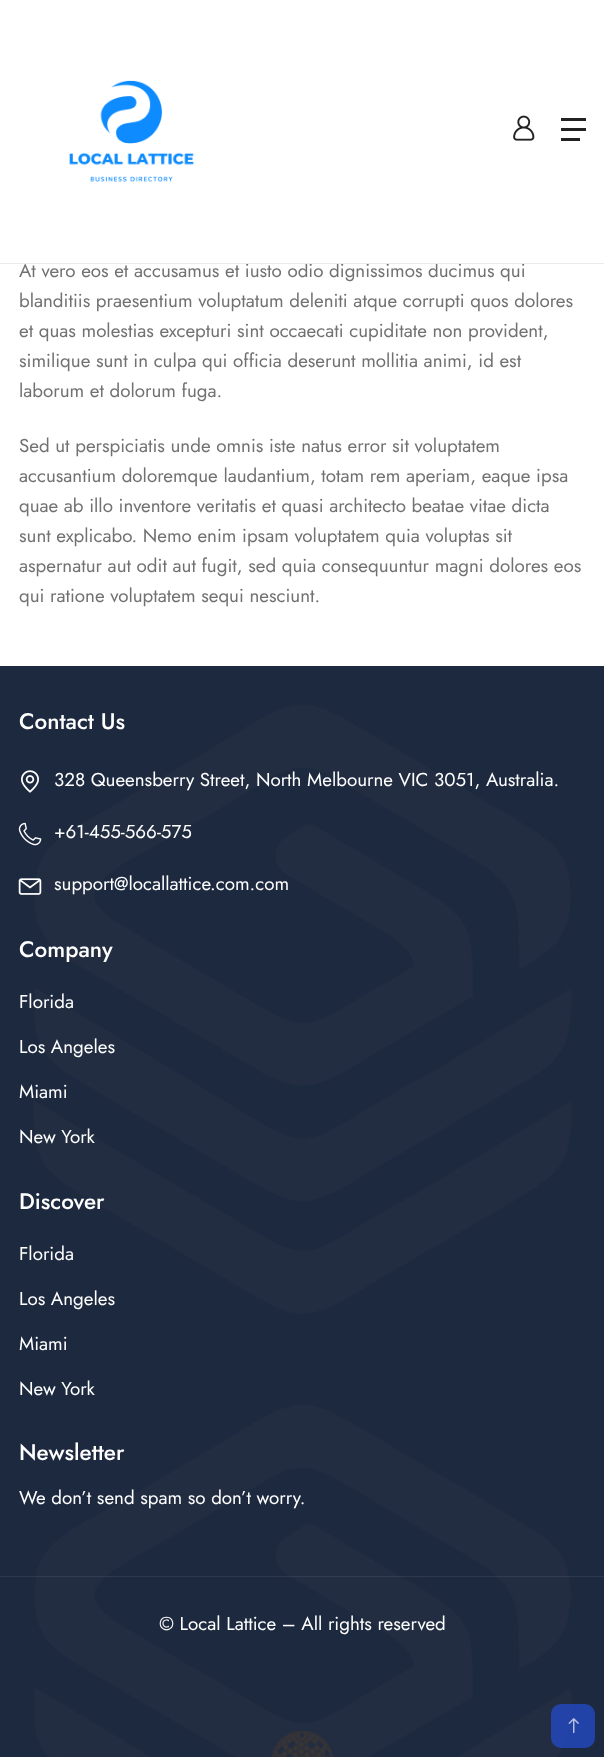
async function draw(canvas) {
  canvas.width = 604
  canvas.height = 1757
  const ctx = canvas.getContext('2d')
  ctx.miterLimit = 4
  ctx.fontKerning = 'normal'
  async function loadImage(src) {
    const img = new Image()
    img.src = src
    await img.decode()
    return img
  }

  ctx.fillStyle = '#fff'
  ctx.fillRect(0, 0, 604, 1757)
  ctx.font = '18.75px Jost'
  ctx.fillStyle = '#717171'
  ctx.fillText('At vero eos et accusamus et iusto odio dignissimos ducimus qui', 19, 277)
  ctx.fillStyle = '#fff'
  ctx.fillRect(305, 262, 133, 1)
  ctx.fillStyle = '#eaeaea'
  ctx.fillRect(0, 263, 604, 1)
  ctx.drawImage(await loadImage('image0.png'), 69, 80, 125, 102)
  ctx.drawImage(await loadImage('image1.png'), 513, 115, 22, 26)
  ctx.fillStyle = '#222'
  ctx.fillRect(561, 118, 25, 3)
  ctx.fillRect(561, 128, 25, 3)
  ctx.fillRect(561, 138, 19, 3)
  ctx.fillStyle = '#717171'
  ctx.fillText('blanditiis praesentium voluptatum deleniti atque corrupti quos dolores', 19, 307)
  ctx.fillText('et quas molestias excepturi sint occaecati cupiditate non provident,', 19, 337)
  ctx.fillText('similique sunt in culpa qui officia deserunt mollitia animi, id est', 19, 367)
  ctx.fillText('laborum et dolorum fuga.', 19, 397)
  ctx.fillText('Sed ut perspiciatis unde omnis iste natus error sit voluptatem', 19, 452)
  ctx.fillText('accusantium doloremque laudantium, totam rem aperiam, eaque ipsa', 19, 482)
  ctx.fillText('quae ab illo inventore veritatis et quasi architecto beatae vitae dicta', 19, 512)
  ctx.fillText('sunt explicabo. Nemo enim ipsam voluptatem quia voluptas sit', 19, 542)
  ctx.fillText('aspernatur aut odit aut fugit, sed quia consequuntur magni dolores eos', 19, 572)
  ctx.fillText('qui ratione voluptatem sequi nesciunt.', 19, 602)
  ctx.drawImage(await loadImage('image2.png'), 0, 666, 604, 1091)
  ctx.font = '500 22.5px Jost'
  ctx.fillStyle = '#fff'
  ctx.fillText('Contact Us', 19, 729)
  ctx.drawImage(await loadImage('image3.png'), 21, 770, 18, 23)
  ctx.font = '18.75px Jost'
  ctx.fillText('328 Queensberry Street, North Melbourne VIC 3051, Australia.', 54, 786)
  ctx.drawImage(await loadImage('image4.png'), 18, 822, 24, 24)
  ctx.fillText('+61-455-566-575', 54, 838)
  ctx.drawImage(await loadImage('image5.png'), 18, 878, 24, 17)
  ctx.fillText('support@locallattice.com.com', 54, 890)
  ctx.font = '500 22.5px Jost'
  ctx.fillText('Company', 19, 957)
  ctx.font = '18.75px Jost'
  ctx.fillText('Florida', 19, 1008)
  ctx.fillText('Los Angeles', 19, 1053)
  ctx.fillText('Miami', 19, 1098)
  ctx.fillText('New York', 19, 1143)
  ctx.font = '500 22.5px Jost'
  ctx.fillText('Discover', 19, 1209)
  ctx.font = '18.75px Jost'
  ctx.fillText('Florida', 19, 1260)
  ctx.fillText('Los Angeles', 19, 1305)
  ctx.fillText('Miami', 19, 1350)
  ctx.fillText('New York', 19, 1395)
  ctx.font = '500 22.5px Jost'
  ctx.fillText('Newsletter', 19, 1460)
  ctx.font = '18.75px Jost'
  ctx.fillText('We don’t send spam so don’t worry.', 19, 1504)
  ctx.fillStyle = '#ffffff14'
  ctx.fillRect(0, 1576, 604, 1)
  ctx.fillStyle = '#fff'
  ctx.fillText('© Local Lattice – All rights reserved', 159, 1630)
  ctx.drawImage(await loadImage('image6.png'), 271, 1730, 62, 27)
  ctx.fillStyle = '#234dd4b3'
  ctx.beginPath()
  ctx.roundRect(551, 1704, 44, 44, 10)
  ctx.fill()
  ctx.drawImage(await loadImage('image7.png'), 568, 1718, 11, 16)
}

draw(document.querySelector('canvas'))
